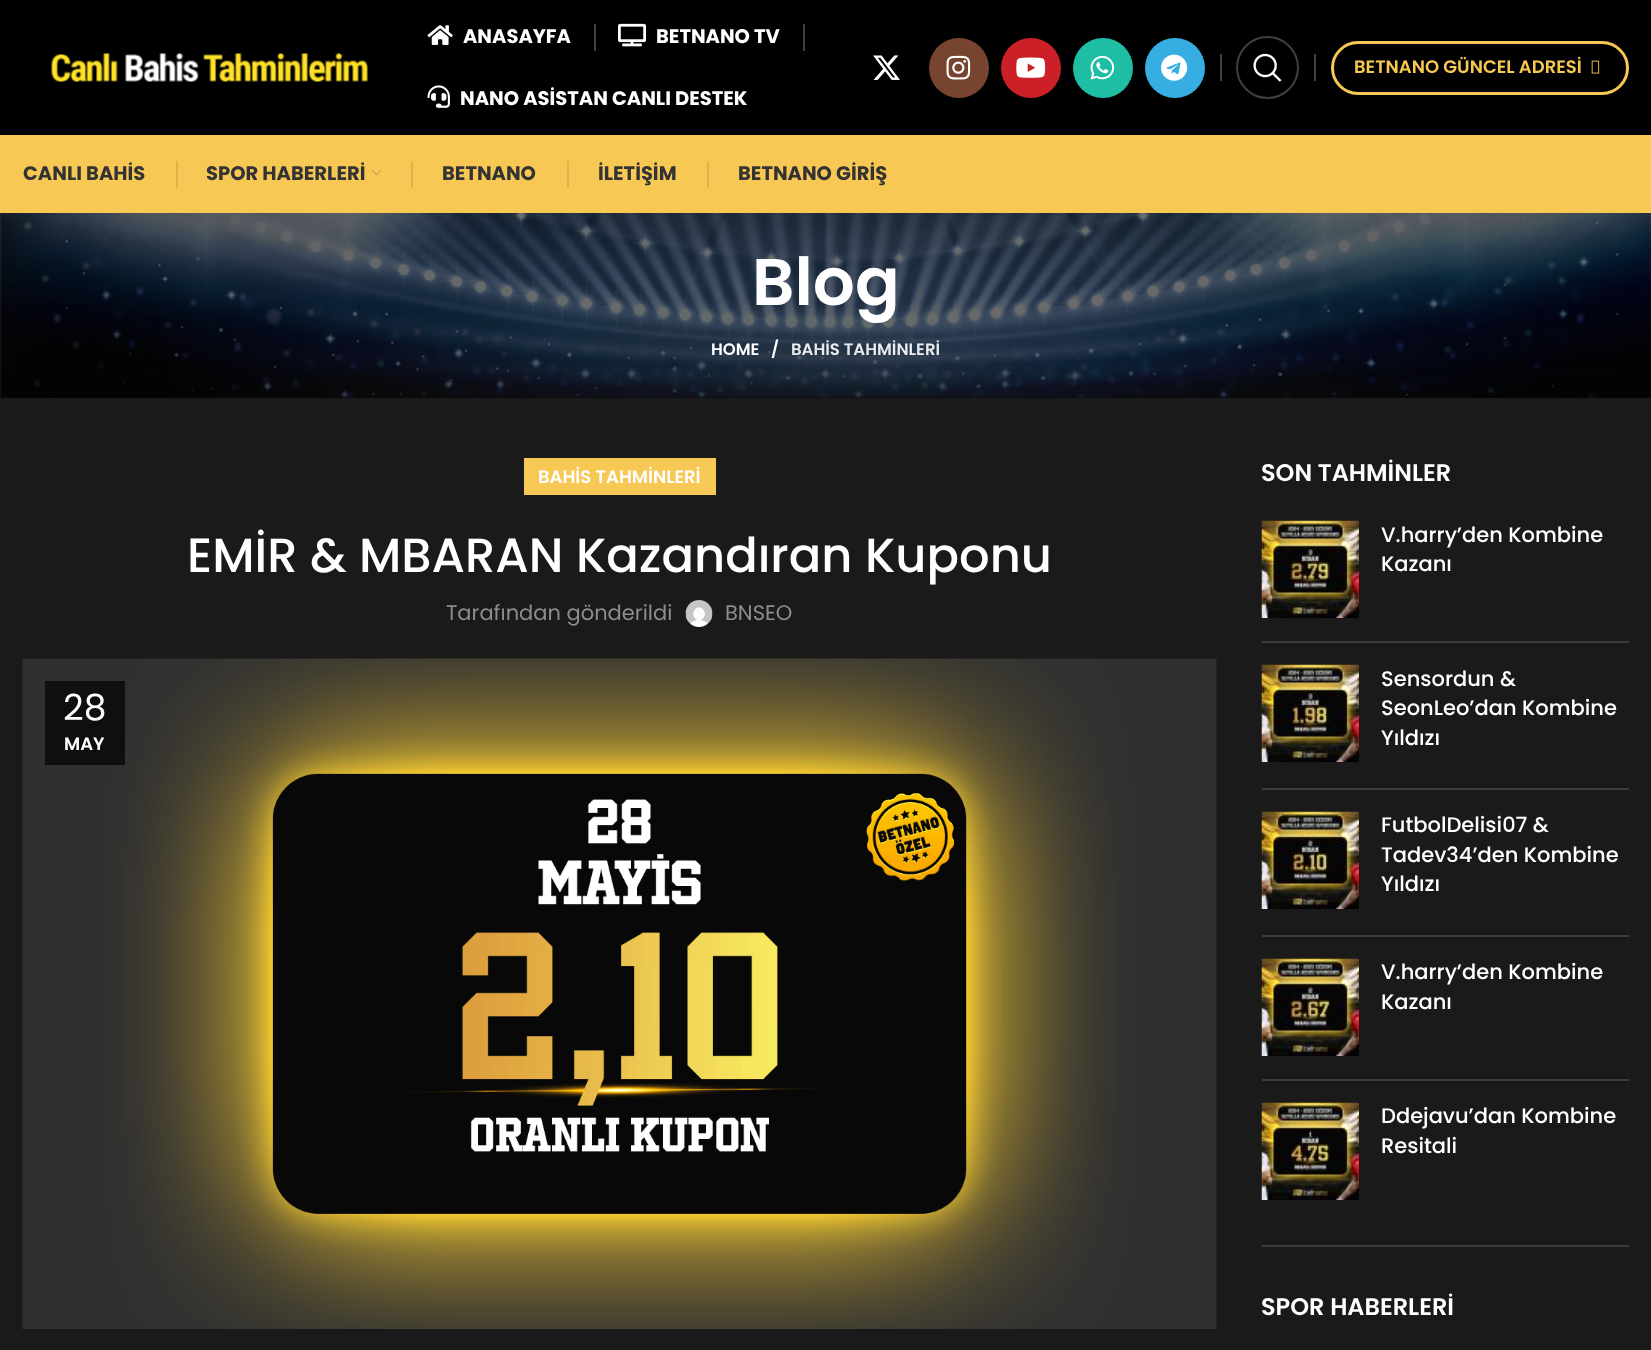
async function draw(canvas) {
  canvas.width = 1651
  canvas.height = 1350
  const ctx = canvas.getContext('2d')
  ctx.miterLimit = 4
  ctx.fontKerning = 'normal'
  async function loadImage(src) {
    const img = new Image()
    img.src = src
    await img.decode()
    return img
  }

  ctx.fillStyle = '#1a1a1a'
  ctx.fillRect(0, 0, 1651, 1350)
  ctx.fillStyle = '#000'
  ctx.fillRect(0, 0, 1651, 135)
  ctx.drawImage(await loadImage('image0.png'), 51, 53, 317, 29)
  ctx.drawImage(await loadImage('image1.png'), 427, 25, 26, 20)
  ctx.font = 'bold 19.5px Poppins'
  ctx.fillStyle = '#fff'
  ctx.fillText('ANASAYFA', 463, 43)
  ctx.fillStyle = '#404040'
  ctx.fillRect(594, 24, 2, 27)
  ctx.drawImage(await loadImage('image2.png'), 618, 23, 29, 24)
  ctx.fillStyle = '#fff'
  ctx.fillText('BETNANO TV', 656, 43)
  ctx.fillStyle = '#404040'
  ctx.fillRect(803, 24, 2, 27)
  ctx.drawImage(await loadImage('image3.png'), 427, 85, 23, 23)
  ctx.fillStyle = '#fff'
  ctx.fillText('NANO ASİSTAN CANLI DESTEK', 460, 105)
  ctx.drawImage(await loadImage('image4.png'), 873, 55, 27, 25)
  ctx.fillStyle = '#774430'
  ctx.beginPath()
  ctx.arc(959, 68, 30, 0, 2 * Math.PI)
  ctx.fill()
  ctx.drawImage(await loadImage('image5.png'), 946, 55, 25, 25)
  ctx.fillStyle = '#cb2027'
  ctx.beginPath()
  ctx.arc(1031, 68, 30, 0, 2 * Math.PI)
  ctx.fill()
  ctx.drawImage(await loadImage('image6.png'), 1016, 57, 30, 21)
  ctx.fillStyle = '#1ebea5'
  ctx.beginPath()
  ctx.arc(1103, 68, 30, 0, 2 * Math.PI)
  ctx.fill()
  ctx.drawImage(await loadImage('image7.png'), 1090, 55, 25, 25)
  ctx.fillStyle = '#37aee2'
  ctx.beginPath()
  ctx.arc(1175, 68, 30, 0, 2 * Math.PI)
  ctx.fill()
  ctx.drawImage(await loadImage('image8.png'), 1161, 54, 27, 27)
  ctx.fillStyle = '#404040'
  ctx.fillRect(1220, 54, 2, 27)
  ctx.beginPath()
  ctx.arc(1267.5, 67.5, 30.5, 0, 2 * Math.PI)
  ctx.strokeStyle = '#404040'
  ctx.lineWidth = 2
  ctx.stroke()
  ctx.drawImage(await loadImage('image9.png'), 1253, 53, 29, 29)
  ctx.fillRect(1314, 54, 2, 27)
  ctx.beginPath()
  ctx.roundRect(1332.5, 42.5, 295, 51, 25.5)
  ctx.strokeStyle = '#f8c854'
  ctx.lineWidth = 3
  ctx.stroke()
  ctx.font = '600 18px Poppins'
  ctx.fillStyle = '#f8c854'
  ctx.fillText('BETNANO GÜNCEL ADRESİ', 1354, 73)
  ctx.drawImage(await loadImage('image10.png'), 1591, 60, 9, 14)
  ctx.fillRect(0, 135, 1651, 78)
  ctx.font = 'bold 19.5px Poppins'
  ctx.fillStyle = '#333'
  ctx.fillText('CANLI BAHİS', 23, 180)
  ctx.fillStyle = '#deb34b'
  ctx.fillRect(176, 161, 2, 27)
  ctx.fillStyle = '#333'
  ctx.fillText('SPOR HABERLERİ', 206, 180)
  ctx.drawImage(await loadImage('image11.png'), 372, 170, 9, 6)
  ctx.fillStyle = '#deb34b'
  ctx.fillRect(411, 161, 2, 27)
  ctx.fillStyle = '#333'
  ctx.fillText('BETNANO', 442, 180)
  ctx.fillStyle = '#deb34b'
  ctx.fillRect(567, 161, 2, 27)
  ctx.fillStyle = '#333'
  ctx.fillText('İLETİŞİM', 598, 180)
  ctx.fillStyle = '#deb34b'
  ctx.fillRect(707, 161, 2, 27)
  ctx.fillStyle = '#333'
  ctx.fillText('BETNANO GİRİŞ', 738, 180)
  ctx.fillStyle = '#0a0a0a'
  ctx.fillRect(0, 397, 1651, 1)
  ctx.drawImage(await loadImage('image12.png'), 0, 213, 1651, 185)
  ctx.font = '600 66px Poppins'
  ctx.fillStyle = '#fff'
  ctx.fillText('Blog', 752, 305)
  ctx.font = '600 16.5px Poppins'
  ctx.fillText('HOME', 711, 355)
  ctx.fillText('/', 771, 355)
  ctx.fillStyle = '#e9ebed'
  ctx.fillText('BAHİS TAHMİNLERİ', 791, 355)
  ctx.fillStyle = '#f8c854'
  ctx.fillRect(524, 458, 192, 37)
  ctx.font = '600 18px Poppins'
  ctx.fillStyle = '#fff'
  ctx.fillText('BAHİS TAHMİNLERİ', 538, 483)
  ctx.font = '500 48px Poppins'
  ctx.fillText('EMİR & MBARAN Kazandıran Kuponu', 187, 572)
  ctx.font = '21px Poppins'
  ctx.fillStyle = '#8d8d8d'
  ctx.fillText('Tarafından gönderildi', 446, 620)
  ctx.drawImage(await loadImage('image13.png'), 685, 600, 28, 27)
  ctx.fillText('BNSEO', 725, 620)
  ctx.drawImage(await loadImage('image14.png'), 22, 658, 1195, 671)
  ctx.fillStyle = '#0f0f0f'
  ctx.fillRect(45, 681, 80, 84)
  ctx.font = '36px Poppins'
  ctx.fillStyle = '#fff'
  ctx.fillText('28', 63, 720)
  ctx.font = '600 18px Poppins'
  ctx.fillText('MAY', 64, 750)
  ctx.fillStyle = '#3c3c3c'
  ctx.fillRect(1262, 1245, 367, 2)
  ctx.font = '600 24px Poppins'
  ctx.fillStyle = '#fff'
  ctx.fillText('SON TAHMİNLER', 1261, 481)
  ctx.fillStyle = '#3c3c3c'
  ctx.fillRect(1262, 641, 367, 2)
  ctx.drawImage(await loadImage('image15.png'), 1261, 520, 98, 98)
  ctx.font = '500 21px Poppins'
  ctx.fillStyle = '#fff'
  ctx.fillText('V.harry’den Kombine', 1381, 542)
  ctx.fillText('Kazanı', 1381, 571)
  ctx.fillStyle = '#3c3c3c'
  ctx.fillRect(1262, 788, 367, 2)
  ctx.drawImage(await loadImage('image16.png'), 1261, 664, 98, 98)
  ctx.fillStyle = '#fff'
  ctx.fillText('Sensordun &', 1381, 686)
  ctx.fillText('SeonLeo’dan Kombine', 1381, 715)
  ctx.fillText('Yıldızı', 1381, 745)
  ctx.fillStyle = '#3c3c3c'
  ctx.fillRect(1262, 935, 367, 2)
  ctx.drawImage(await loadImage('image17.png'), 1261, 811, 98, 98)
  ctx.fillStyle = '#fff'
  ctx.fillText('FutbolDelisi07 &', 1381, 832)
  ctx.fillText('Tadev34’den Kombine', 1381, 862)
  ctx.fillText('Yıldızı', 1381, 891)
  ctx.fillStyle = '#3c3c3c'
  ctx.fillRect(1262, 1079, 367, 2)
  ctx.drawImage(await loadImage('image18.png'), 1261, 958, 98, 98)
  ctx.fillStyle = '#fff'
  ctx.fillText('V.harry’den Kombine', 1381, 979)
  ctx.fillText('Kazanı', 1381, 1009)
  ctx.drawImage(await loadImage('image19.png'), 1261, 1102, 98, 98)
  ctx.fillText('Ddejavu’dan Kombine', 1381, 1123)
  ctx.fillText('Resitali', 1381, 1153)
  ctx.font = '600 24px Poppins'
  ctx.fillText('SPOR HABERLERİ', 1261, 1315)
}

draw(document.querySelector('canvas'))
